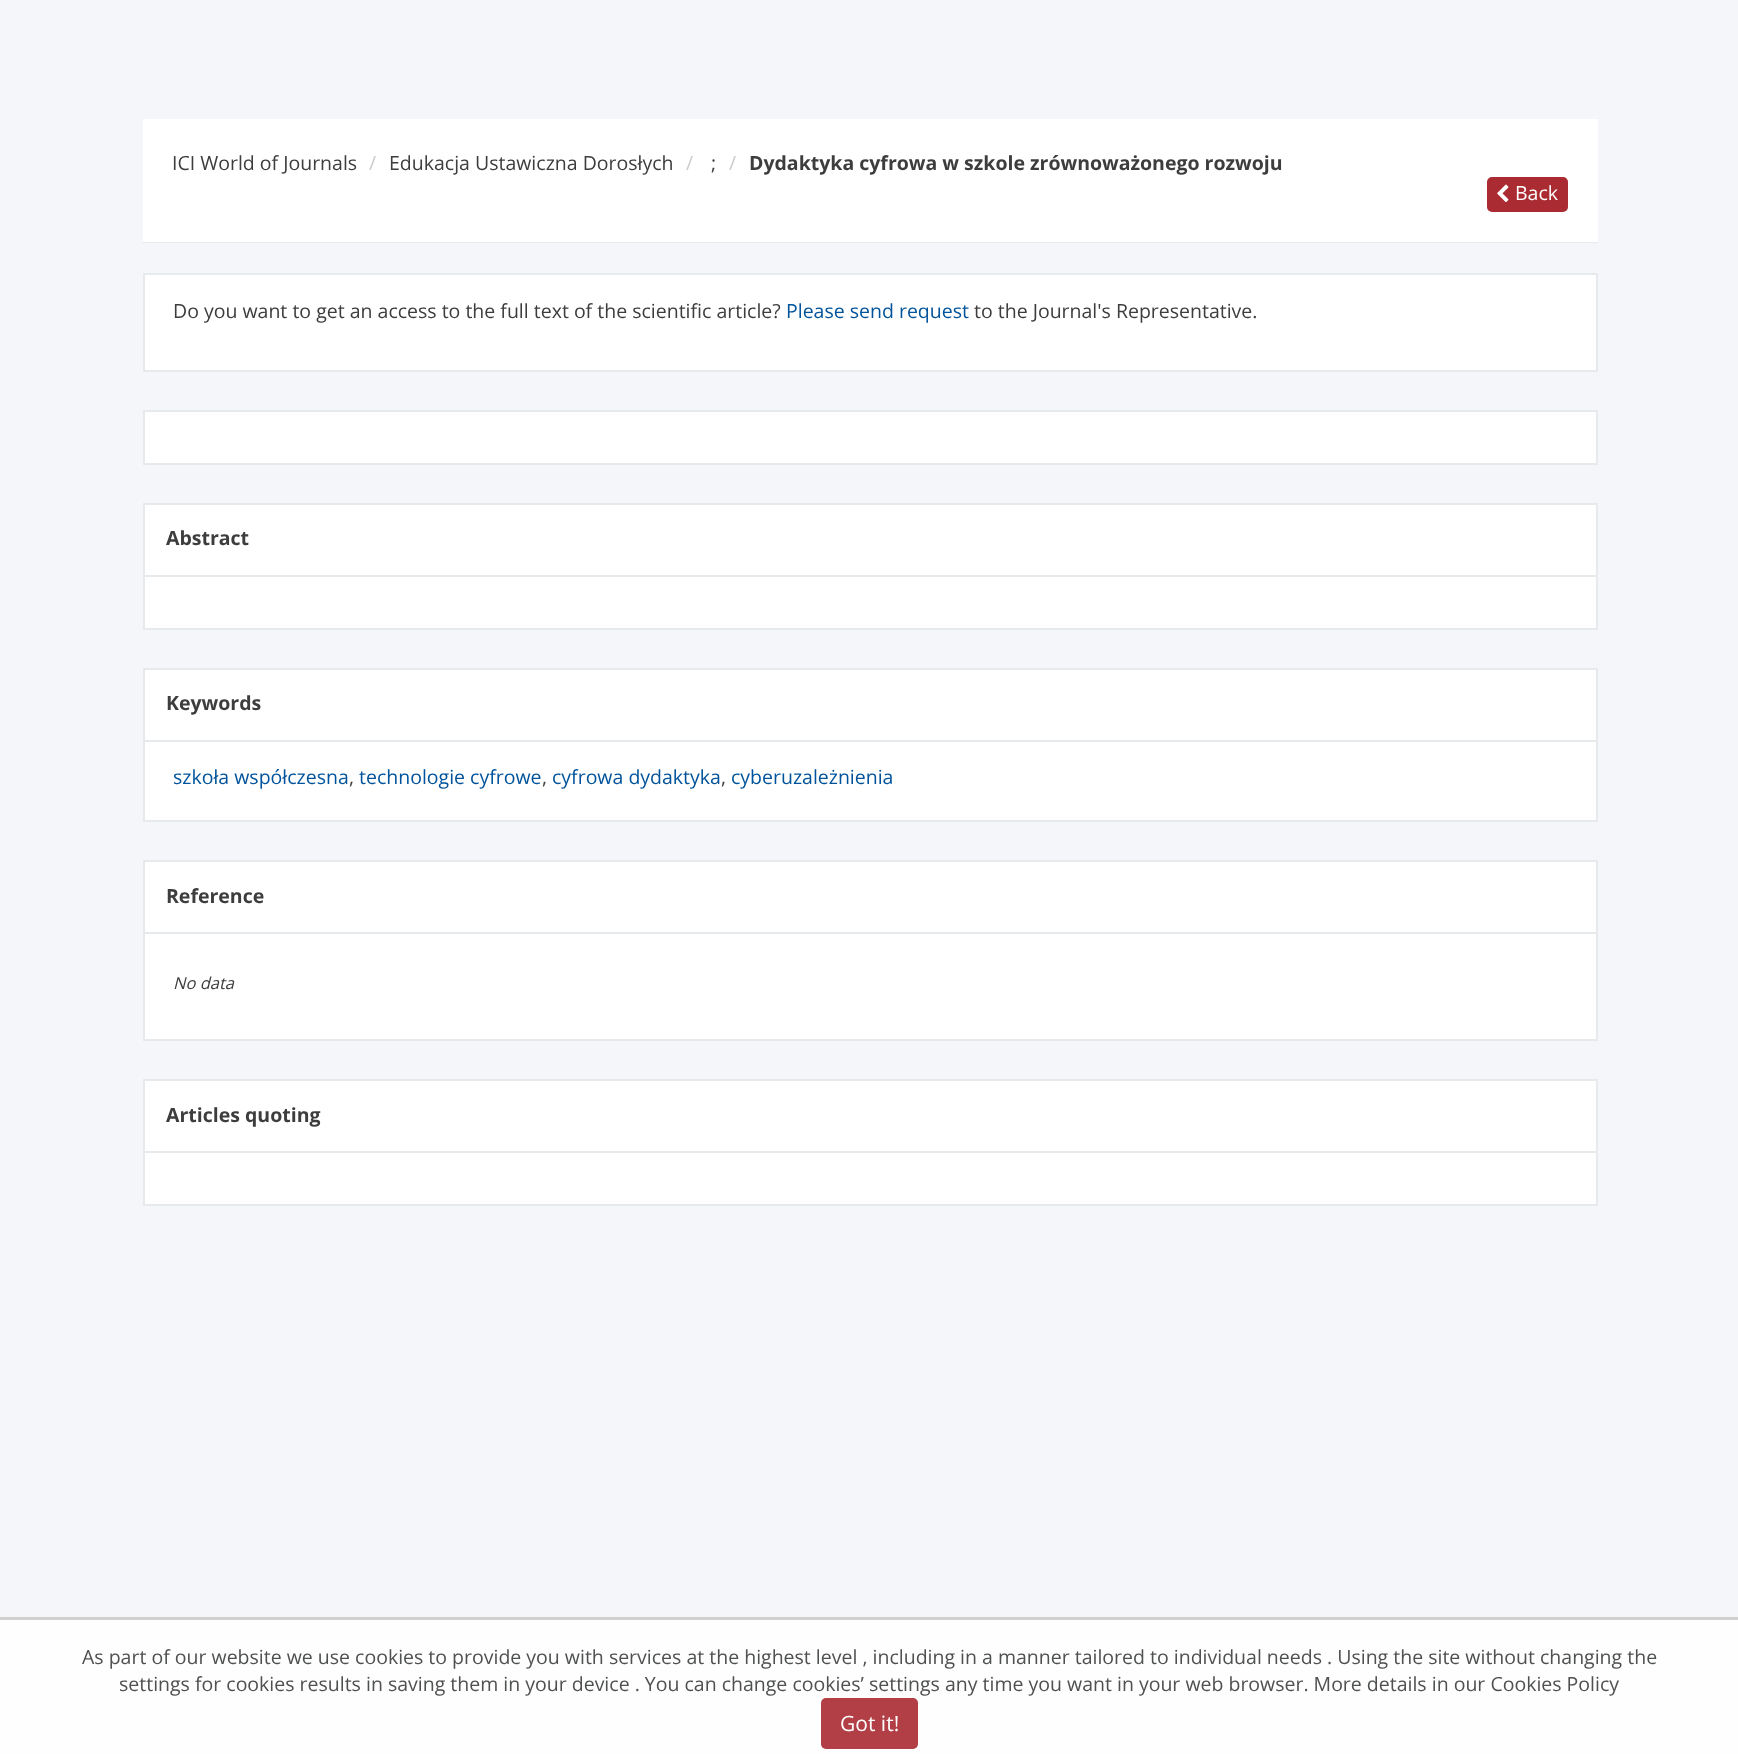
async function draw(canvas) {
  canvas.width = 1738
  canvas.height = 1754
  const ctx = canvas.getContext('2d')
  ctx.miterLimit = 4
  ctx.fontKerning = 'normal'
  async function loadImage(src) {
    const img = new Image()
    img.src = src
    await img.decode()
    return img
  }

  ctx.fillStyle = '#f4f6fa'
  ctx.fillRect(0, 0, 1738, 1754)
  ctx.fillStyle = '#fff'
  ctx.fillRect(143, 119, 1455, 123)
  ctx.fillStyle = '#e7eaec'
  ctx.fillRect(143, 242, 1455, 1)
  ctx.font = '19.5px Open Sans'
  ctx.fillStyle = '#3d3d3d'
  ctx.fillText('ICI World of Journals', 172, 170)
  ctx.fillStyle = '#ccc'
  ctx.fillText('/', 369, 170)
  ctx.fillStyle = '#3d3d3d'
  ctx.fillText('Edukacja Ustawiczna Dorosłych', 389, 170)
  ctx.fillStyle = '#ccc'
  ctx.fillText('/', 686, 170)
  ctx.fillStyle = '#3d3d3d'
  ctx.fillText(';', 711, 170)
  ctx.fillStyle = '#ccc'
  ctx.fillText('/', 729, 170)
  ctx.font = 'bold 19.5px Open Sans'
  ctx.fillStyle = '#3d3d3d'
  ctx.fillText('Dydaktyka cyfrowa w szkole zrównoważonego rozwoju', 749, 170)
  ctx.fillStyle = '#aa2b31'
  ctx.beginPath()
  ctx.roundRect(1488, 178, 79, 33, 4)
  ctx.fill()
  ctx.strokeStyle = '#aa2b31'
  ctx.lineWidth = 2
  ctx.stroke()
  ctx.drawImage(await loadImage('image0.png'), 1497, 184, 12, 18)
  ctx.font = '19.5px Open Sans'
  ctx.fillStyle = '#fff'
  ctx.fillText('Back', 1515, 200)
  ctx.beginPath()
  ctx.rect(144, 274, 1453, 97)
  ctx.fill()
  ctx.strokeStyle = '#e7eaec'
  ctx.stroke()
  ctx.fillStyle = '#3d3d3d'
  ctx.fillText('Do you want to get an access to the full text of the scientific article?', 173, 318)
  ctx.fillStyle = '#00539b'
  ctx.fillText('Please send request', 786, 318)
  ctx.fillStyle = '#3d3d3d'
  ctx.fillText('to the Journal\'s Representative.', 974, 318)
  ctx.fillStyle = '#fff'
  ctx.beginPath()
  ctx.rect(144, 411, 1453, 53)
  ctx.fill()
  ctx.stroke()
  ctx.fillRect(145, 505, 1451, 70)
  ctx.fillStyle = '#e7eaec'
  ctx.fillRect(143, 503, 1455, 2)
  ctx.fillRect(1596, 503, 2, 72)
  ctx.fillRect(143, 503, 2, 72)
  ctx.font = 'bold 19.5px Open Sans'
  ctx.fillStyle = '#3d3d3d'
  ctx.fillText('Abstract', 166, 545)
  ctx.fillStyle = '#fff'
  ctx.beginPath()
  ctx.rect(144, 576, 1453, 53)
  ctx.fill()
  ctx.stroke()
  ctx.fillRect(145, 670, 1451, 70)
  ctx.fillStyle = '#e7eaec'
  ctx.fillRect(143, 668, 1455, 2)
  ctx.fillRect(1596, 668, 2, 72)
  ctx.fillRect(143, 668, 2, 72)
  ctx.fillStyle = '#3d3d3d'
  ctx.fillText('Keywords', 166, 710)
  ctx.fillStyle = '#fff'
  ctx.beginPath()
  ctx.rect(144, 741, 1453, 80)
  ctx.fill()
  ctx.stroke()
  ctx.font = '19.5px Open Sans'
  ctx.fillStyle = '#00539b'
  ctx.fillText('szkoła współczesna', 173, 784)
  ctx.fillStyle = '#3d3d3d'
  ctx.fillText(',', 349, 784)
  ctx.fillStyle = '#00539b'
  ctx.fillText('technologie cyfrowe', 359, 784)
  ctx.fillStyle = '#3d3d3d'
  ctx.fillText(',', 542, 784)
  ctx.fillStyle = '#00539b'
  ctx.fillText('cyfrowa dydaktyka', 552, 784)
  ctx.fillStyle = '#3d3d3d'
  ctx.fillText(',', 721, 784)
  ctx.fillStyle = '#00539b'
  ctx.fillText('cyberuzależnienia', 731, 784)
  ctx.fillStyle = '#fff'
  ctx.fillRect(145, 862, 1451, 70)
  ctx.fillStyle = '#e7eaec'
  ctx.fillRect(143, 860, 1455, 2)
  ctx.fillRect(1596, 860, 2, 72)
  ctx.fillRect(143, 860, 2, 72)
  ctx.font = 'bold 19.5px Open Sans'
  ctx.fillStyle = '#3d3d3d'
  ctx.fillText('Reference', 166, 903)
  ctx.fillStyle = '#fff'
  ctx.beginPath()
  ctx.rect(144, 933, 1453, 107)
  ctx.fill()
  ctx.stroke()
  ctx.font = 'italic 16.5px Open Sans'
  ctx.fillStyle = '#3d3d3d'
  ctx.fillText('No data', 173, 989)
  ctx.fillStyle = '#fff'
  ctx.fillRect(145, 1081, 1451, 70)
  ctx.fillStyle = '#e7eaec'
  ctx.fillRect(143, 1079, 1455, 2)
  ctx.fillRect(1596, 1079, 2, 72)
  ctx.fillRect(143, 1079, 2, 72)
  ctx.font = 'bold 19.5px Open Sans'
  ctx.fillStyle = '#3d3d3d'
  ctx.fillText('Articles quoting', 166, 1122)
  ctx.fillStyle = '#fff'
  ctx.beginPath()
  ctx.rect(144, 1152, 1453, 53)
  ctx.fill()
  ctx.stroke()
  ctx.fillStyle = '#fefefe'
  ctx.fillRect(0, 1620, 1738, 134)
  ctx.fillStyle = '#d0d0d1'
  ctx.fillRect(0, 1617, 1738, 3)
  ctx.font = '19.5px Open Sans'
  ctx.fillStyle = '#4f5050'
  ctx.fillText('As part of our website we use cookies to provide you with services at the highest level , including in a manner tailored to individual needs . Using the site without changing the', 82, 1664)
  ctx.fillText('settings for cookies results in saving them in your device . You can change cookies’ settings any time you want in your web browser. More details in our Cookies Policy', 119, 1691)
  ctx.fillStyle = '#b13f45'
  ctx.beginPath()
  ctx.roundRect(821, 1698, 97, 51, 5)
  ctx.fill()
  ctx.font = '21px Open Sans'
  ctx.fillStyle = '#fff'
  ctx.fillText('Got it!', 840, 1731)
}

draw(document.querySelector('canvas'))
